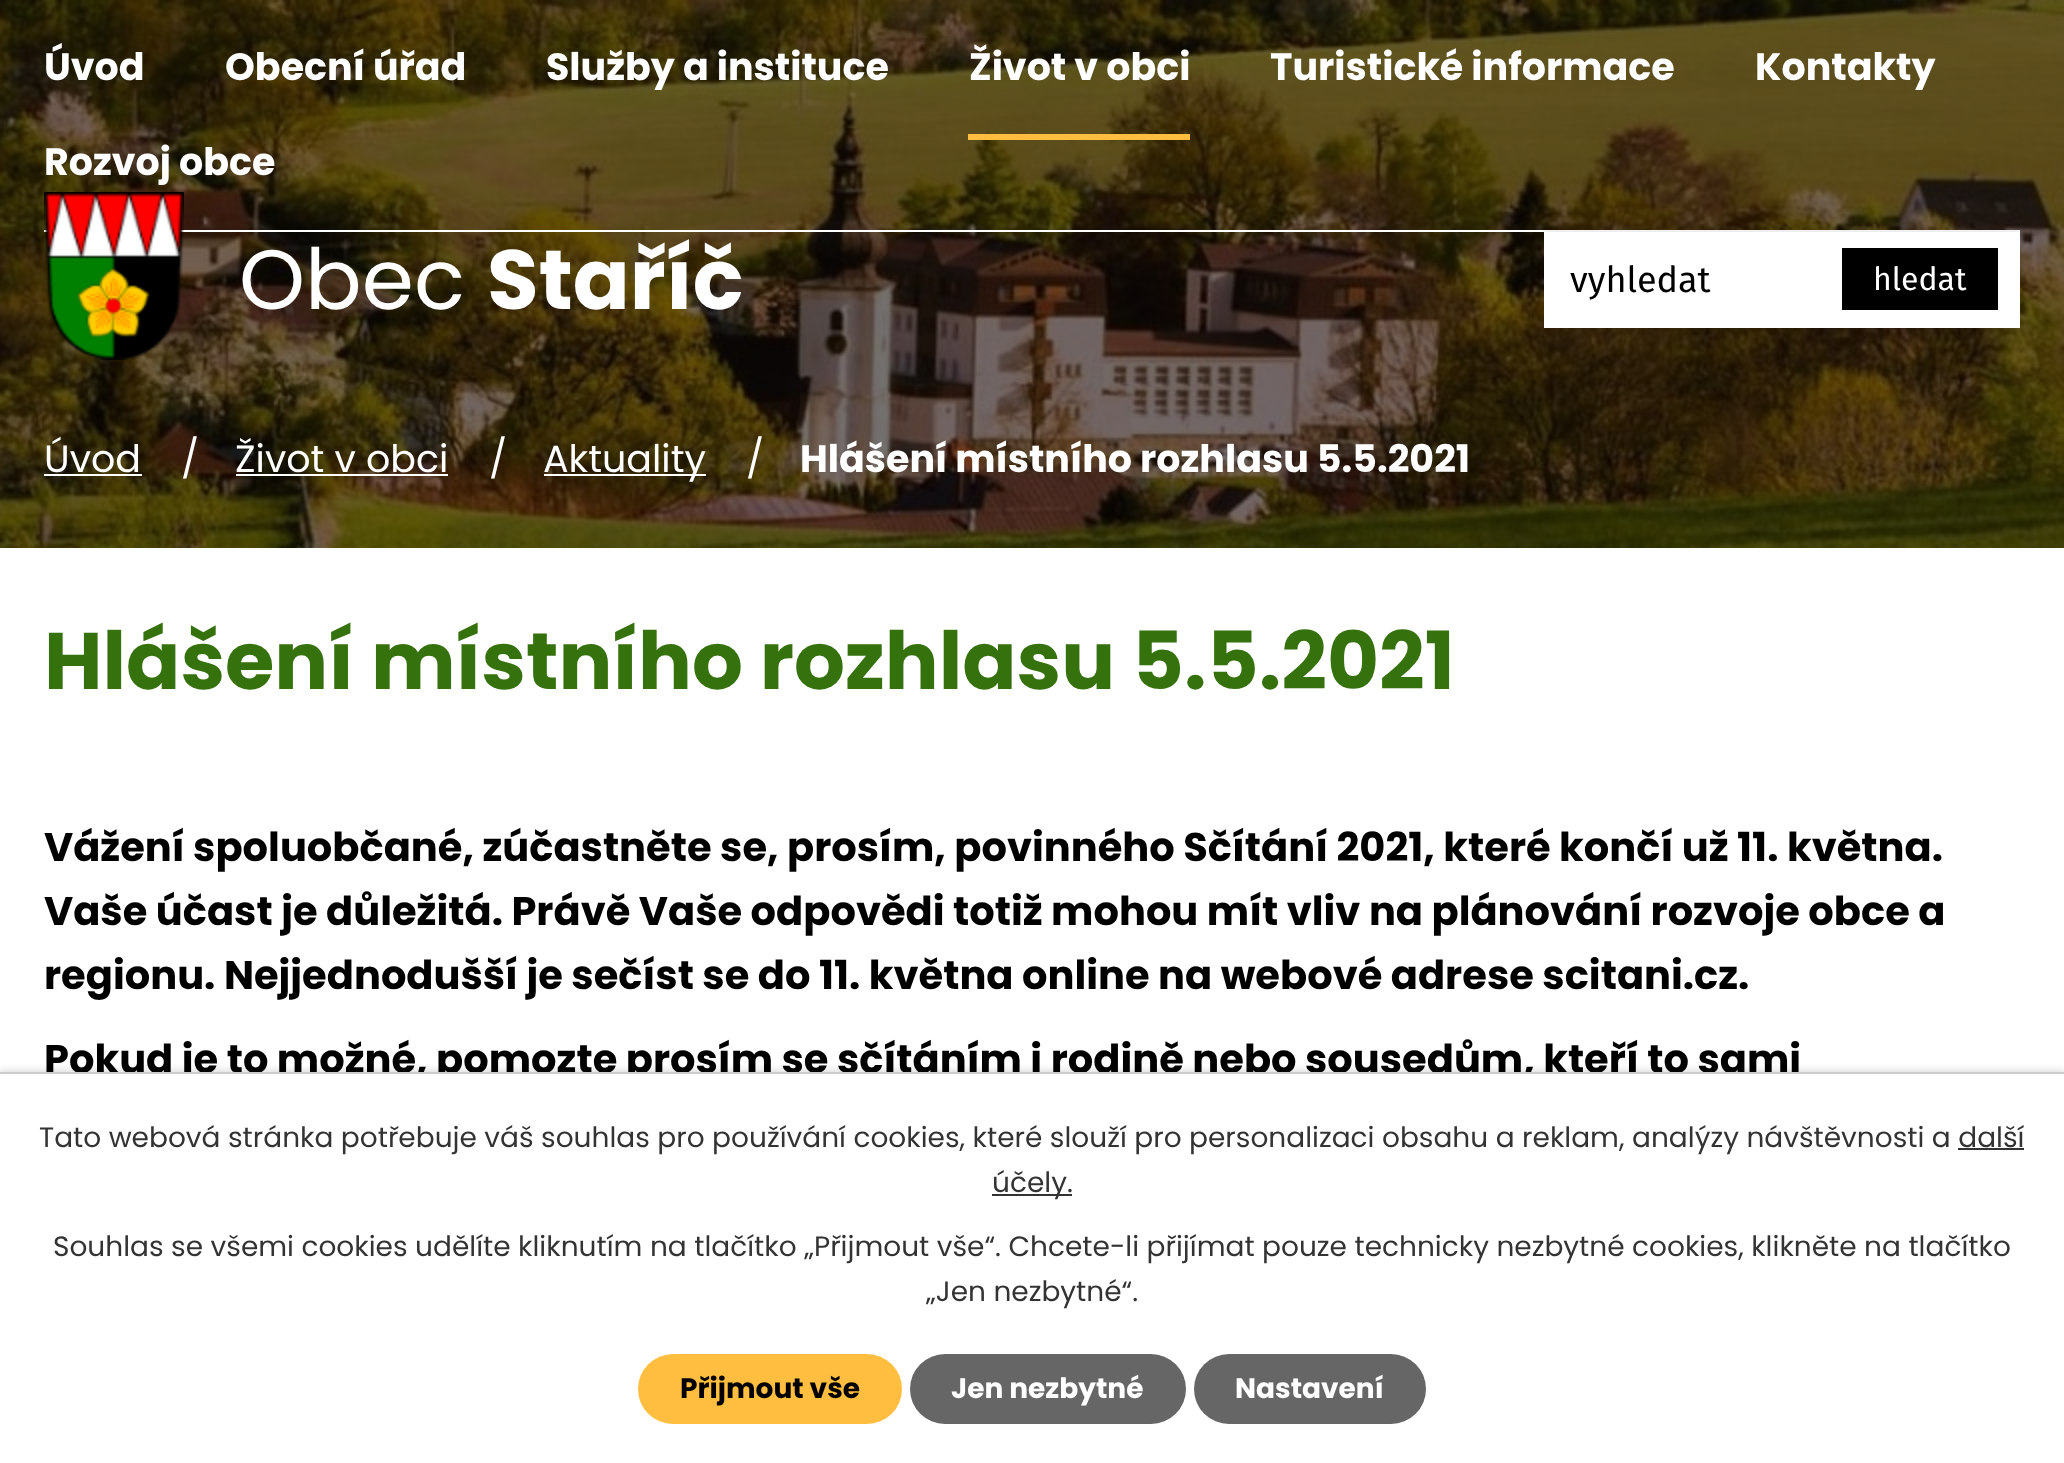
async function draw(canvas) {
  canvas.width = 2064
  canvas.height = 1463
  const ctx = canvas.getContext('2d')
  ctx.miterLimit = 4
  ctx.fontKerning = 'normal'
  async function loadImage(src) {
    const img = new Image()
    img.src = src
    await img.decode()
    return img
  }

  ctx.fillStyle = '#fff'
  ctx.fillRect(0, 0, 2064, 1463)
  ctx.drawImage(await loadImage('image0.png'), 0, 0, 2064, 548)
  ctx.fillRect(44, 230, 1976, 2)
  ctx.font = 'bold 38px Poppins'
  ctx.fillText('Úvod', 44, 80)
  ctx.fillText('Obecní úřad', 225, 80)
  ctx.fillText('Služby a instituce', 546, 80)
  ctx.fillText('Život v obci', 969, 80)
  ctx.fillStyle = '#ffbe3f'
  ctx.fillRect(968, 134, 222, 6)
  ctx.fillStyle = '#fff'
  ctx.fillText('Turistické informace', 1270, 80)
  ctx.fillText('Kontakty', 1755, 80)
  ctx.fillText('Rozvoj obce', 44, 175)
  ctx.drawImage(await loadImage('image1.png'), 44, 192, 140, 168)
  ctx.font = '84px Poppins'
  ctx.fillText('Obec', 239, 309)
  ctx.font = 'bold 84px Poppins'
  ctx.fillText('Staříč', 487, 309)
  ctx.fillStyle = '#00000029'
  ctx.filter = 'blur(3.5px)'
  ctx.beginPath()
  ctx.rect(1544, 232, 476, 96)
  ctx.fill()
  ctx.filter = 'none'
  ctx.fillStyle = '#fff'
  ctx.fillRect(1544, 232, 476, 96)
  ctx.font = '36px Fira Sans'
  ctx.fillStyle = '#000'
  ctx.fillText('vyhledat', 1570, 292)
  ctx.fillRect(1842, 248, 156, 62)
  ctx.font = '32px Fira Sans'
  ctx.fillStyle = '#fff'
  ctx.fillText('hledat', 1873, 290)
  ctx.font = '38px Poppins'
  ctx.fillText('Úvod', 44, 472)
  ctx.fillRect(44, 474, 98, 2)
  ctx.fillText('/', 181, 472)
  ctx.fillText('Život v obci', 235, 472)
  ctx.fillRect(236, 474, 212, 2)
  ctx.fillText('/', 489, 472)
  ctx.fillRect(544, 474, 162, 2)
  ctx.fillText('Aktuality', 543, 472)
  ctx.fillText('/', 746, 472)
  ctx.font = 'bold 38px Poppins'
  ctx.fillText('Hlášení místního rozhlasu 5.5.2021', 800, 472)
  ctx.font = 'bold 80px Poppins'
  ctx.fillStyle = '#35720d'
  ctx.fillText('Hlášení místního rozhlasu 5.5.2021', 44, 689)
  ctx.font = 'bold 40px Poppins'
  ctx.fillStyle = '#000'
  ctx.fillText('Vážení spoluobčané, zúčastněte se, prosím, povinného Sčítání 2021, které končí už 11. května.', 44, 861)
  ctx.fillText('Vaše účast je důležitá. Právě Vaše odpovědi totiž mohou mít vliv na plánování rozvoje obce a', 44, 925)
  ctx.fillText('regionu. Nejjednodušší je sečíst se do 11. května online na webové adrese scitani.cz.', 44, 989)
  ctx.fillText('Pokud je to možné, pomozte prosím se sčítáním i rodině nebo sousedům, kteří to sami', 44, 1073)
  ctx.fillStyle = '#00000033'
  ctx.filter = 'blur(5px)'
  ctx.beginPath()
  ctx.rect(0, 1072, 2064, 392)
  ctx.fill()
  ctx.filter = 'none'
  ctx.fillStyle = '#fff'
  ctx.fillRect(0, 1074, 2064, 389)
  ctx.fillStyle = '#ccc'
  ctx.fillRect(0, 1072, 2064, 2)
  ctx.font = '28px Poppins'
  ctx.fillStyle = '#333'
  ctx.fillText('Tato webová stránka potřebuje váš souhlas pro používání cookies, které slouží pro personalizaci obsahu a reklam, analýzy návštěvnosti a další', 39, 1147)
  ctx.fillRect(992, 1194, 80, 2)
  ctx.fillText('účely.', 992, 1192)
  ctx.fillRect(1958, 1148, 66, 2)
  ctx.fillText('Souhlas se všemi cookies udělíte kliknutím na tlačítko „Přijmout vše“. Chcete-li přijímat pouze technicky nezbytné cookies, klikněte na tlačítko', 53, 1256)
  ctx.fillText('„Jen nezbytné“.', 926, 1301)
  ctx.fillStyle = '#ffbe3f'
  ctx.beginPath()
  ctx.roundRect(638, 1354, 264, 70, 35)
  ctx.fill()
  ctx.font = 'bold 28px Poppins'
  ctx.fillStyle = '#000'
  ctx.fillText('Přijmout vše', 680, 1398)
  ctx.fillStyle = '#666'
  ctx.beginPath()
  ctx.roundRect(910, 1354, 276, 70, 35)
  ctx.fill()
  ctx.fillStyle = '#fff'
  ctx.fillText('Jen nezbytné', 951, 1398)
  ctx.fillStyle = '#666'
  ctx.beginPath()
  ctx.roundRect(1194, 1354, 232, 70, 35)
  ctx.fill()
  ctx.fillStyle = '#fff'
  ctx.fillText('Nastavení', 1235, 1398)
}

draw(document.querySelector('canvas'))
